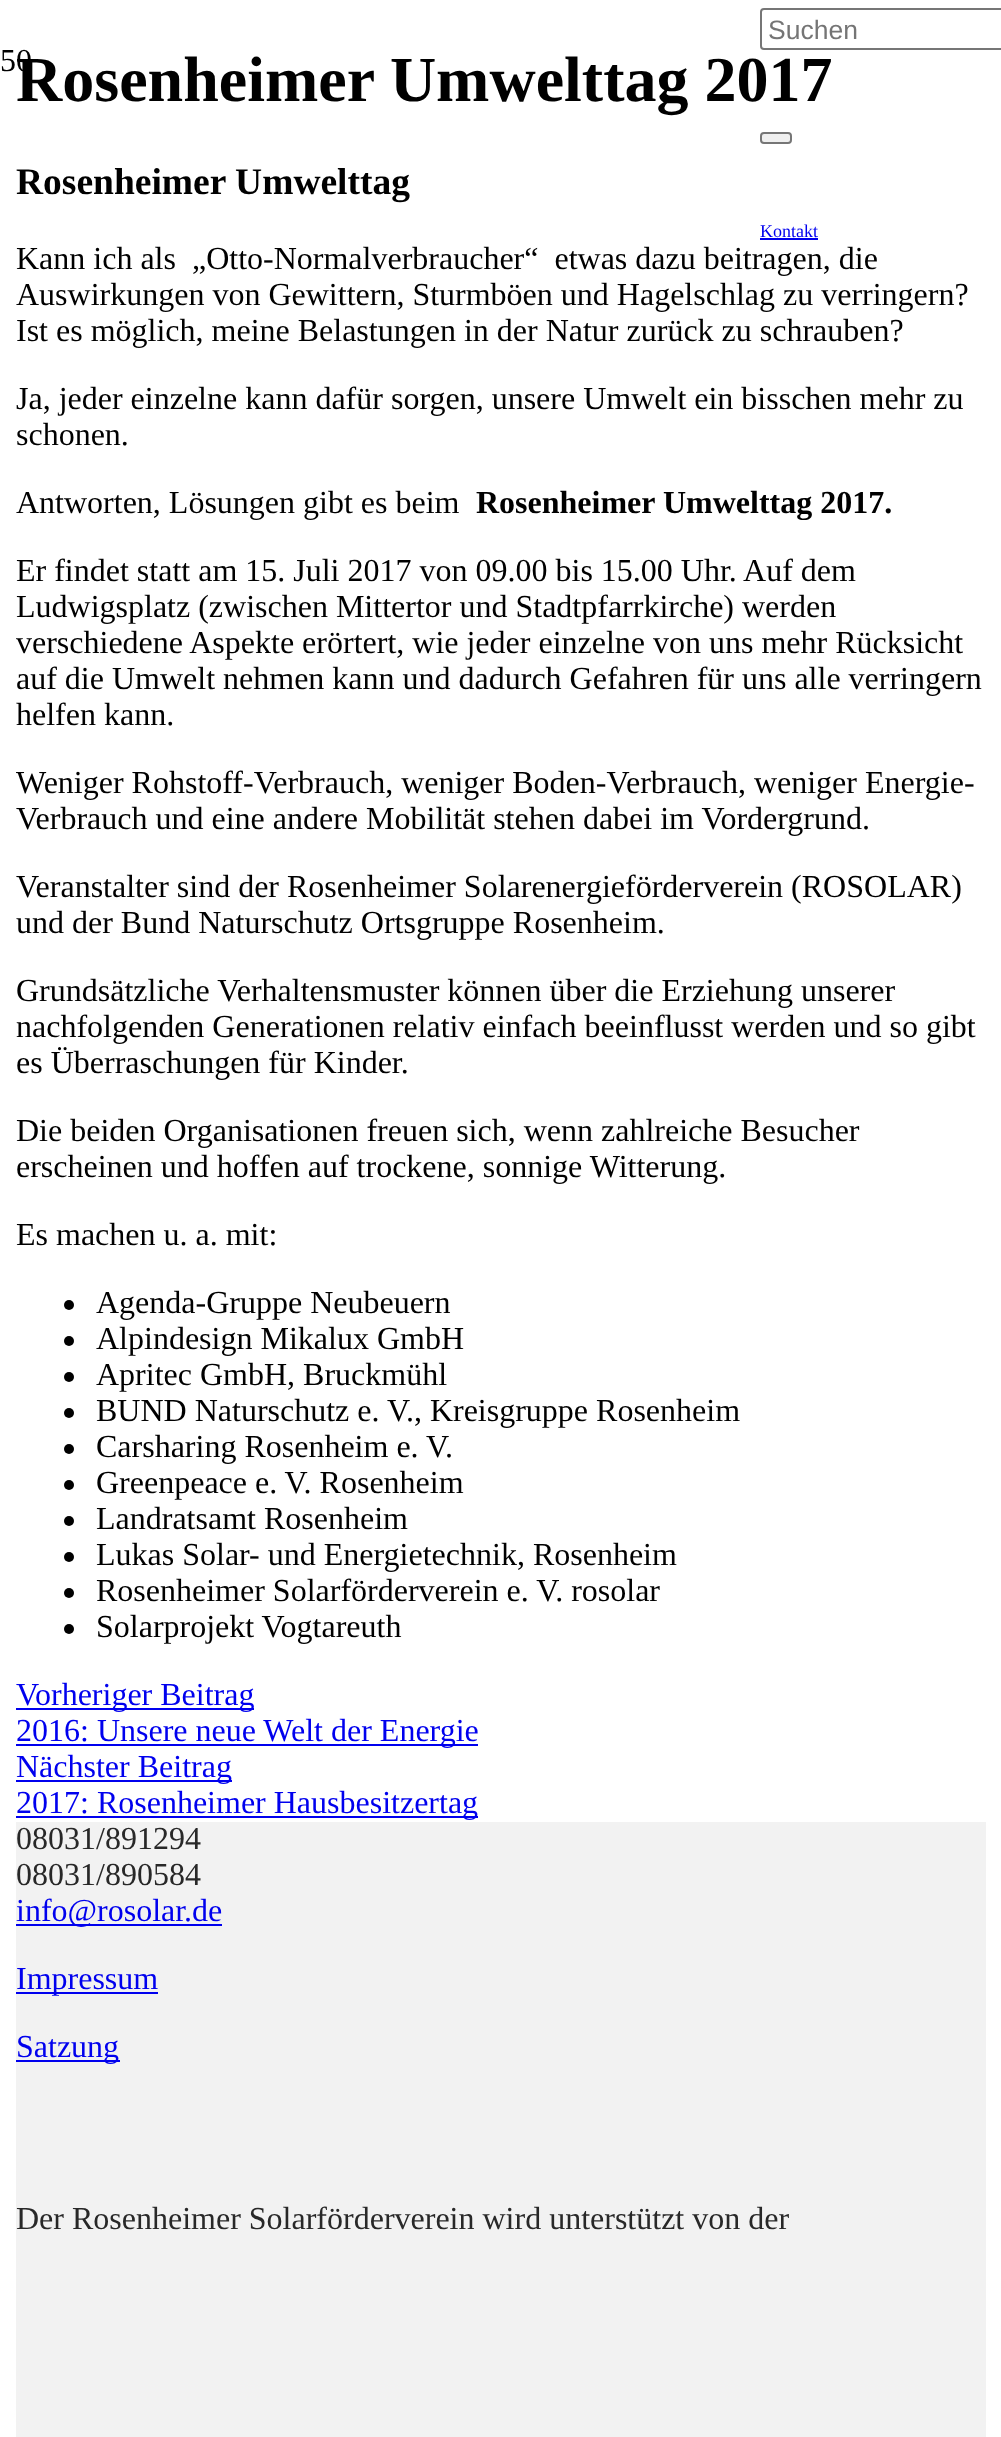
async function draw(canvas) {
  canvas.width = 1001
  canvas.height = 2437
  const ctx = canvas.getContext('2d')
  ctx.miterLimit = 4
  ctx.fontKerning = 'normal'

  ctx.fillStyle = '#fff'
  ctx.fillRect(0, 0, 1001, 2437)
  ctx.font = 'bold 64px Liberation Serif'
  ctx.fillStyle = '#000'
  ctx.fillText('Rosenheimer Umwelttag 2017', 16, 101)
  ctx.font = '32px Liberation Serif'
  ctx.fillText('50', 0, 71)
  ctx.beginPath()
  ctx.roundRect(761, 9, 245, 40, 3)
  ctx.strokeStyle = '#767676'
  ctx.lineWidth = 2
  ctx.stroke()
  ctx.font = '26.5px Liberation Sans'
  ctx.fillStyle = '#757575'
  ctx.fillText('Suchen', 768, 39)
  ctx.fillStyle = '#efefef'
  ctx.beginPath()
  ctx.roundRect(761, 133, 30, 10, 3)
  ctx.fill()
  ctx.stroke()
  ctx.font = '18px Liberation Serif'
  ctx.fillStyle = '#00e'
  ctx.fillText('Kontakt', 760, 237)
  ctx.fillRect(760, 238, 58, 2)
  ctx.font = 'bold 37.5px Liberation Serif'
  ctx.fillStyle = '#000'
  ctx.fillText('Rosenheimer Umwelttag', 16, 194)
  ctx.font = '32px Liberation Serif'
  ctx.fillText('Kann ich als  „Otto-Normalverbraucher“  etwas dazu beitragen, die', 16, 269)
  ctx.fillText('Auswirkungen von Gewittern, Sturmböen und Hagelschlag zu verringern?', 16, 305)
  ctx.fillText('Ist es möglich, meine Belastungen in der Natur zurück zu schrauben?', 16, 341)
  ctx.fillText('Ja, jeder einzelne kann dafür sorgen, unsere Umwelt ein bisschen mehr zu', 16, 409)
  ctx.fillText('schonen.', 16, 445)
  ctx.fillText('Antworten, Lösungen gibt es beim', 16, 513)
  ctx.font = 'bold 32px Liberation Serif'
  ctx.fillText('Rosenheimer Umwelttag 2017.', 476, 513)
  ctx.font = '32px Liberation Serif'
  ctx.fillText('Er findet statt am 15. Juli 2017 von 09.00 bis 15.00 Uhr. Auf dem', 16, 581)
  ctx.fillText('Ludwigsplatz (zwischen Mittertor und Stadtpfarrkirche) werden', 16, 617)
  ctx.fillText('verschiedene Aspekte erörtert, wie jeder einzelne von uns mehr Rücksicht', 16, 653)
  ctx.fillText('auf die Umwelt nehmen kann und dadurch Gefahren für uns alle verringern', 16, 689)
  ctx.fillText('helfen kann.', 16, 725)
  ctx.fillText('Weniger Rohstoff-Verbrauch, weniger Boden-Verbrauch, weniger Energie-', 16, 793)
  ctx.fillText('Verbrauch und eine andere Mobilität stehen dabei im Vordergrund.', 16, 829)
  ctx.fillText('Veranstalter sind der Rosenheimer Solarenergieförderverein (ROSOLAR)', 16, 897)
  ctx.fillText('und der Bund Naturschutz Ortsgruppe Rosenheim.', 16, 933)
  ctx.fillText('Grundsätzliche Verhaltensmuster können über die Erziehung unserer', 16, 1001)
  ctx.fillText('nachfolgenden Generationen relativ einfach beeinflusst werden und so gibt', 16, 1037)
  ctx.fillText('es Überraschungen für Kinder.', 16, 1073)
  ctx.fillText('Die beiden Organisationen freuen sich, wenn zahlreiche Besucher', 16, 1141)
  ctx.fillText('erscheinen und hoffen auf trockene, sonnige Witterung.', 16, 1177)
  ctx.fillText('Es machen u. a. mit:', 16, 1245)
  ctx.beginPath()
  ctx.arc(69, 1305, 5, 0, 2 * Math.PI)
  ctx.fill()
  ctx.fillText('Agenda-Gruppe Neubeuern', 96, 1313)
  ctx.beginPath()
  ctx.arc(69, 1341, 5, 0, 2 * Math.PI)
  ctx.fill()
  ctx.fillText('Alpindesign Mikalux GmbH', 96, 1349)
  ctx.beginPath()
  ctx.arc(69, 1377, 5, 0, 2 * Math.PI)
  ctx.fill()
  ctx.fillText('Apritec GmbH, Bruckmühl', 96, 1385)
  ctx.beginPath()
  ctx.arc(69, 1413, 5, 0, 2 * Math.PI)
  ctx.fill()
  ctx.fillText('BUND Naturschutz e. V., Kreisgruppe Rosenheim', 96, 1421)
  ctx.beginPath()
  ctx.arc(69, 1449, 5, 0, 2 * Math.PI)
  ctx.fill()
  ctx.fillText('Carsharing Rosenheim e. V.', 96, 1457)
  ctx.beginPath()
  ctx.arc(69, 1485, 5, 0, 2 * Math.PI)
  ctx.fill()
  ctx.fillText('Greenpeace e. V. Rosenheim', 96, 1493)
  ctx.beginPath()
  ctx.arc(69, 1521, 5, 0, 2 * Math.PI)
  ctx.fill()
  ctx.fillText('Landratsamt Rosenheim', 96, 1529)
  ctx.beginPath()
  ctx.arc(69, 1557, 5, 0, 2 * Math.PI)
  ctx.fill()
  ctx.fillText('Lukas Solar- und Energietechnik, Rosenheim', 96, 1565)
  ctx.beginPath()
  ctx.arc(69, 1593, 5, 0, 2 * Math.PI)
  ctx.fill()
  ctx.fillText('Rosenheimer Solarförderverein e. V. rosolar', 96, 1601)
  ctx.beginPath()
  ctx.arc(69, 1629, 5, 0, 2 * Math.PI)
  ctx.fill()
  ctx.fillText('Solarprojekt Vogtareuth', 96, 1637)
  ctx.fillStyle = '#00e'
  ctx.fillRect(16, 1708, 238, 2)
  ctx.fillText('Vorheriger Beitrag', 16, 1705)
  ctx.fillRect(16, 1744, 462, 2)
  ctx.fillText('2016: Unsere neue Welt der Energie', 16, 1741)
  ctx.fillRect(16, 1780, 216, 2)
  ctx.fillText('Nächster Beitrag', 16, 1777)
  ctx.fillRect(16, 1816, 462, 2)
  ctx.fillText('2017: Rosenheimer Hausbesitzertag', 16, 1813)
  ctx.fillStyle = '#f2f2f2'
  ctx.fillRect(16, 1822, 970, 615)
  ctx.fillStyle = '#282828'
  ctx.fillText('08031/891294', 16, 1849)
  ctx.fillText('08031/890584', 16, 1885)
  ctx.fillStyle = '#00e'
  ctx.fillRect(16, 1924, 206, 2)
  ctx.fillText('info@rosolar.de', 16, 1921)
  ctx.fillRect(16, 1992, 142, 2)
  ctx.fillText('Impressum', 16, 1989)
  ctx.fillRect(16, 2060, 104, 2)
  ctx.fillText('Satzung', 16, 2057)
  ctx.fillStyle = '#282828'
  ctx.fillText('Der Rosenheimer Solarförderverein wird unterstützt von der', 16, 2229)
}

draw(document.querySelector('canvas'))
